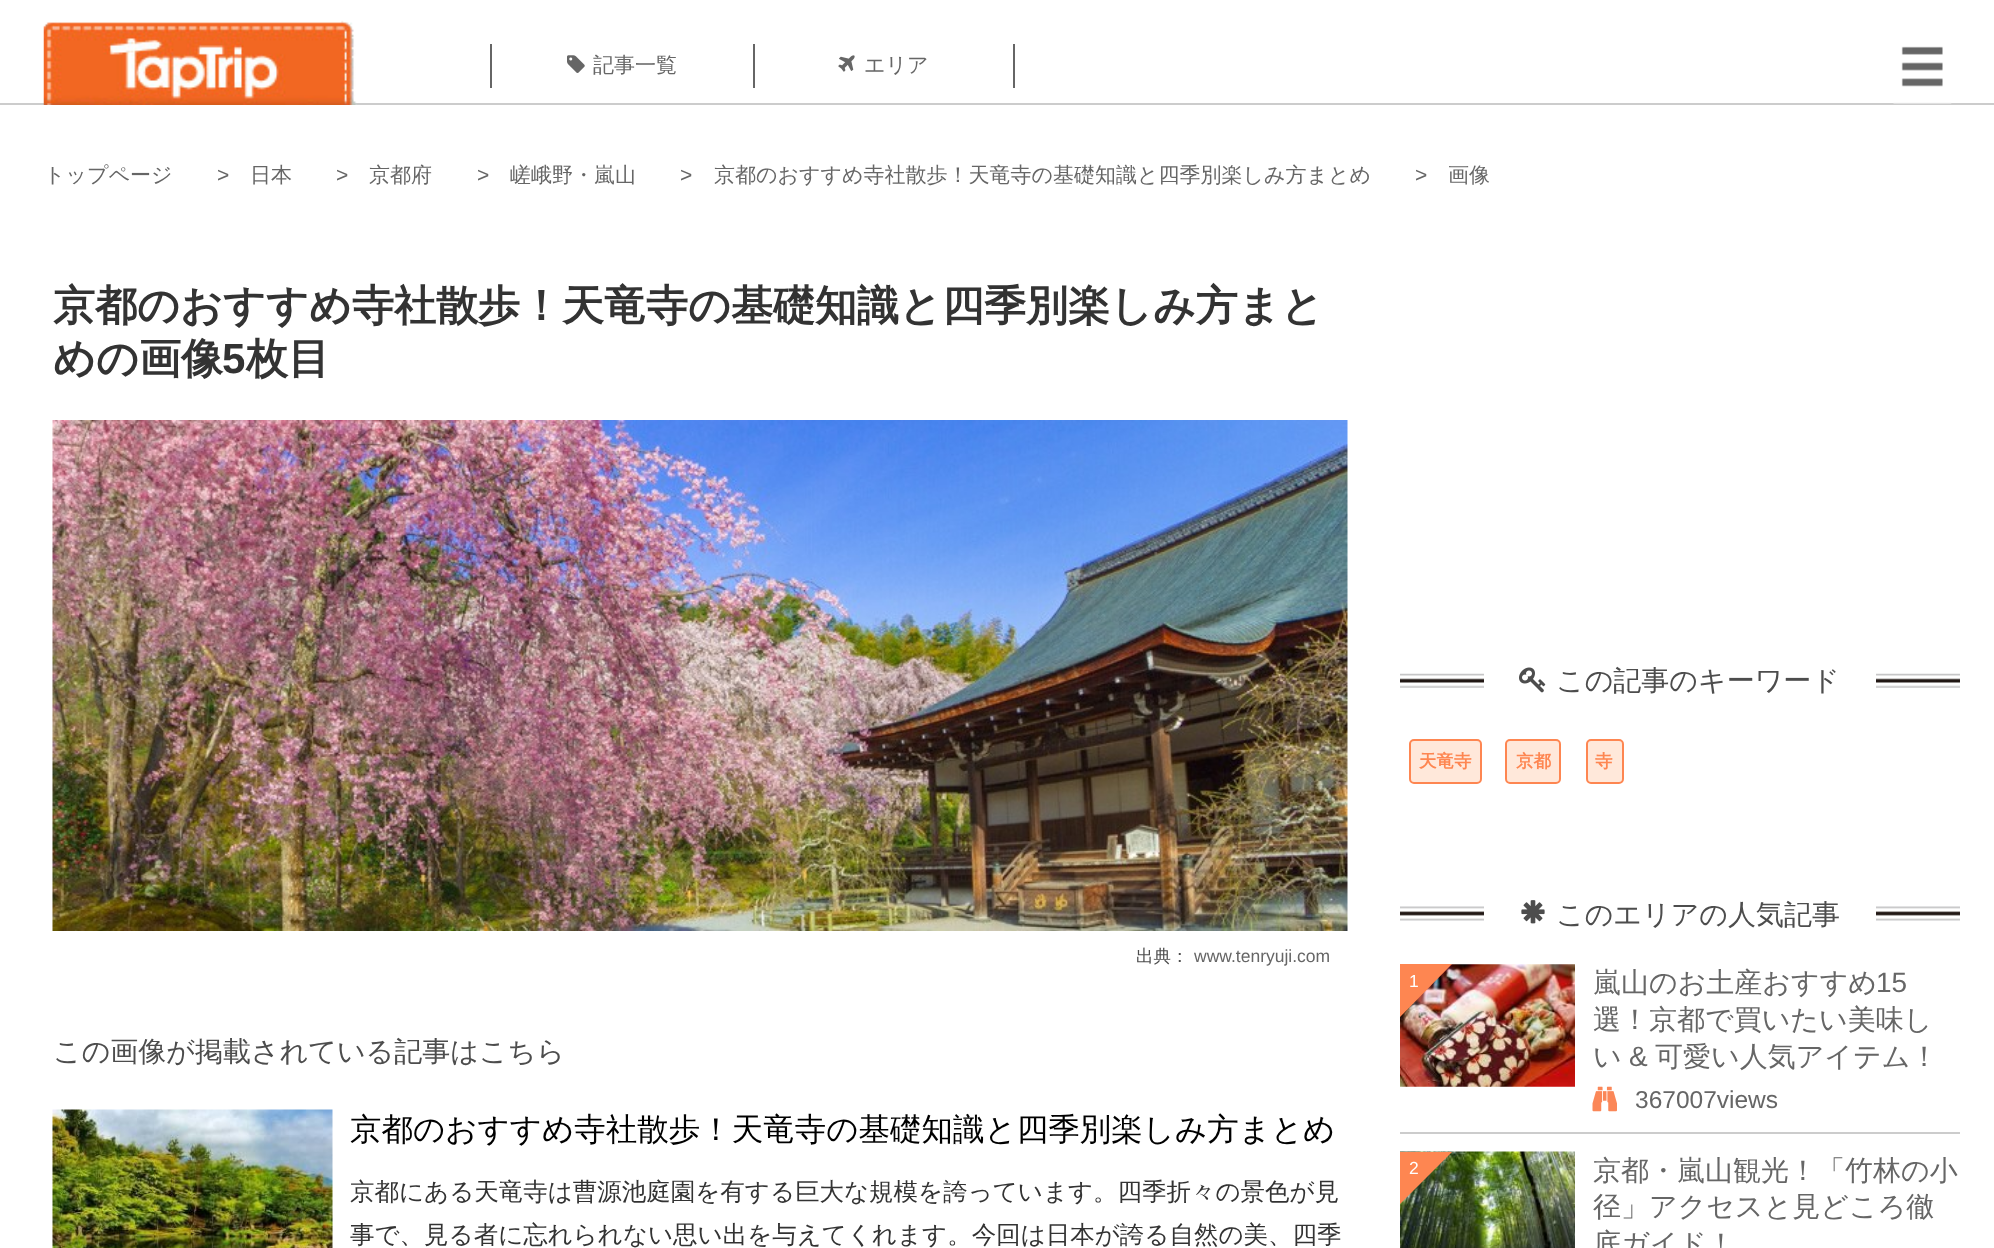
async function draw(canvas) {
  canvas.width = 1994
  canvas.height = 1248
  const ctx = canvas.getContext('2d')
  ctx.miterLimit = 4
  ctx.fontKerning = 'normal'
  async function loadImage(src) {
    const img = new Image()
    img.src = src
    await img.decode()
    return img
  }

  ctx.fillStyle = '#fff'
  ctx.fillRect(0, 0, 1994, 1248)
  ctx.fillStyle = '#ccc'
  ctx.fillRect(0, 103, 1994, 2)
  ctx.drawImage(await loadImage('image0.png'), 43, 20, 314, 85)
  ctx.fillStyle = '#666'
  ctx.fillRect(490, 44, 2, 44)
  ctx.drawImage(await loadImage('image1.png'), 567, 55, 18, 18)
  ctx.font = '500 21px WenQuanYi Zen Hei'
  ctx.fillText('記事一覧', 593, 72)
  ctx.fillRect(1013, 44, 2, 44)
  ctx.fillRect(753, 44, 2, 44)
  ctx.drawImage(await loadImage('image2.png'), 838, 55, 17, 17)
  ctx.fillText('エリア', 864, 72)
  ctx.drawImage(await loadImage('image3.png'), 1893, 46, 59, 58)
  ctx.fillText('トップページ', 44, 182)
  ctx.font = '21px Liberation Sans'
  ctx.fillText('>', 217, 182)
  ctx.font = '500 21px WenQuanYi Zen Hei'
  ctx.fillText('日本', 250, 182)
  ctx.font = '21px Liberation Sans'
  ctx.fillText('>', 336, 182)
  ctx.font = '500 21px WenQuanYi Zen Hei'
  ctx.fillText('京都府', 369, 182)
  ctx.font = '21px Liberation Sans'
  ctx.fillText('>', 477, 182)
  ctx.font = '500 21px WenQuanYi Zen Hei'
  ctx.fillText('嵯峨野・嵐山', 510, 182)
  ctx.font = '21px Liberation Sans'
  ctx.fillText('>', 680, 182)
  ctx.font = '500 21px WenQuanYi Zen Hei'
  ctx.fillText('京都のおすすめ寺社散歩！天竜寺の基礎知識と四季別楽しみ方まとめ', 714, 182)
  ctx.font = '21px Liberation Sans'
  ctx.fillText('>', 1415, 182)
  ctx.font = '500 21px WenQuanYi Zen Hei'
  ctx.fillText('画像', 1448, 182)
  ctx.font = 'bold 42px WenQuanYi Zen Hei'
  ctx.fillStyle = '#333'
  ctx.fillText('京都のおすすめ寺社散歩！天竜寺の基礎知識と四季別楽しみ方まと', 53, 320)
  ctx.fillText('めの画像', 53, 373)
  ctx.font = 'bold 42px Liberation Sans'
  ctx.fillText('5', 222, 373)
  ctx.font = 'bold 42px WenQuanYi Zen Hei'
  ctx.fillText('枚目', 246, 373)
  ctx.drawImage(await loadImage('image4.png'), 52, 420, 1296, 511)
  ctx.font = '500 17.5px WenQuanYi Zen Hei'
  ctx.fillStyle = '#4d4d4d'
  ctx.fillText('出典：', 1136, 962)
  ctx.font = '17.5px Liberation Sans'
  ctx.fillStyle = '#666'
  ctx.fillText('www.tenryuji.com', 1194, 962)
  ctx.font = '500 28px WenQuanYi Zen Hei'
  ctx.fillStyle = '#4d4d4d'
  ctx.fillText('この画像が掲載されている記事はこちら', 53, 1061)
  ctx.drawImage(await loadImage('image5.png'), 52, 1109, 281, 139)
  ctx.font = '500 31.5px WenQuanYi Zen Hei'
  ctx.fillStyle = '#000'
  ctx.fillText('京都のおすすめ寺社散歩！天竜寺の基礎知識と四季別楽しみ方まとめ', 350, 1140)
  ctx.font = '500 24.5px WenQuanYi Zen Hei'
  ctx.fillStyle = '#333'
  ctx.fillText('京都にある天竜寺は曹源池庭園を有する巨大な規模を誇っています。四季折々の景色が見', 350, 1200)
  ctx.fillText('事で、見る者に忘れられない思い出を与えてくれます。今回は日本が誇る自然の美、四季', 350, 1243)
  ctx.drawImage(await loadImage('image6.png'), 1400, 673, 560, 15)
  ctx.fillStyle = '#fff'
  ctx.fillRect(1484, 673, 392, 15)
  ctx.drawImage(await loadImage('image7.png'), 1519, 667, 27, 26)
  ctx.font = '500 28px WenQuanYi Zen Hei'
  ctx.fillStyle = '#4d4d4d'
  ctx.fillText('この記事のキーワード', 1556, 690)
  ctx.fillStyle = '#ffe8da'
  ctx.beginPath()
  ctx.roundRect(1410, 740, 71, 43, 4)
  ctx.fill()
  ctx.strokeStyle = '#fe8651'
  ctx.lineWidth = 2
  ctx.stroke()
  ctx.font = 'bold 17.5px WenQuanYi Zen Hei'
  ctx.fillStyle = '#fe8651'
  ctx.fillText('天竜寺', 1419, 767)
  ctx.fillStyle = '#ffe8da'
  ctx.beginPath()
  ctx.roundRect(1506, 740, 54, 43, 4)
  ctx.fill()
  ctx.stroke()
  ctx.fillStyle = '#fe8651'
  ctx.fillText('京都', 1516, 767)
  ctx.fillStyle = '#ffe8da'
  ctx.beginPath()
  ctx.roundRect(1587, 740, 36, 43, 4)
  ctx.fill()
  ctx.stroke()
  ctx.fillStyle = '#fe8651'
  ctx.fillText('寺', 1595, 767)
  ctx.drawImage(await loadImage('image8.png'), 1400, 906, 560, 15)
  ctx.fillStyle = '#fff'
  ctx.fillRect(1484, 906, 392, 15)
  ctx.drawImage(await loadImage('image9.png'), 1521, 900, 24, 24)
  ctx.font = '500 28px WenQuanYi Zen Hei'
  ctx.fillStyle = '#4d4d4d'
  ctx.fillText('このエリアの人気記事', 1556, 924)
  ctx.fillStyle = '#ccc'
  ctx.fillRect(1400, 1132, 560, 2)
  ctx.drawImage(await loadImage('image10.png'), 1400, 964, 175, 123)
  ctx.fillStyle = '#fe8651'
  ctx.beginPath()
  ctx.moveTo(1400, 1017)
  ctx.lineTo(1400, 964)
  ctx.lineTo(1452, 964)
  ctx.closePath()
  ctx.fill()
  ctx.font = '17.5px Liberation Sans'
  ctx.fillStyle = '#fff'
  ctx.fillText('1', 1409, 987)
  ctx.font = '500 28px WenQuanYi Zen Hei'
  ctx.fillStyle = '#666'
  ctx.fillText('嵐山のお土産おすすめ', 1593, 992)
  ctx.font = '28px Liberation Sans'
  ctx.fillText('15', 1876, 992)
  ctx.font = '500 28px WenQuanYi Zen Hei'
  ctx.fillText('選！京都で買いたい美味し', 1593, 1029)
  ctx.fillText('い', 1593, 1066)
  ctx.font = '28px Liberation Sans'
  ctx.fillText('&', 1629, 1066)
  ctx.font = '500 28px WenQuanYi Zen Hei'
  ctx.fillText('可愛い人気アイテム！', 1655, 1066)
  ctx.drawImage(await loadImage('image11.png'), 1592, 1086, 25, 26)
  ctx.font = '24.5px Liberation Sans'
  ctx.fillText('367007views', 1635, 1108)
  ctx.drawImage(await loadImage('image12.png'), 1400, 1151, 175, 97)
  ctx.fillStyle = '#fe8651'
  ctx.beginPath()
  ctx.moveTo(1400, 1204)
  ctx.lineTo(1400, 1152)
  ctx.lineTo(1452, 1152)
  ctx.closePath()
  ctx.fill()
  ctx.font = '17.5px Liberation Sans'
  ctx.fillStyle = '#fff'
  ctx.fillText('2', 1409, 1174)
  ctx.font = '500 28px WenQuanYi Zen Hei'
  ctx.fillStyle = '#666'
  ctx.fillText('京都・嵐山観光！「竹林の小', 1593, 1180)
  ctx.fillText('径」アクセスと見どころ徹', 1593, 1216)
  ctx.fillText('底ガイド！', 1593, 1253)
}

draw(document.querySelector('canvas'))
